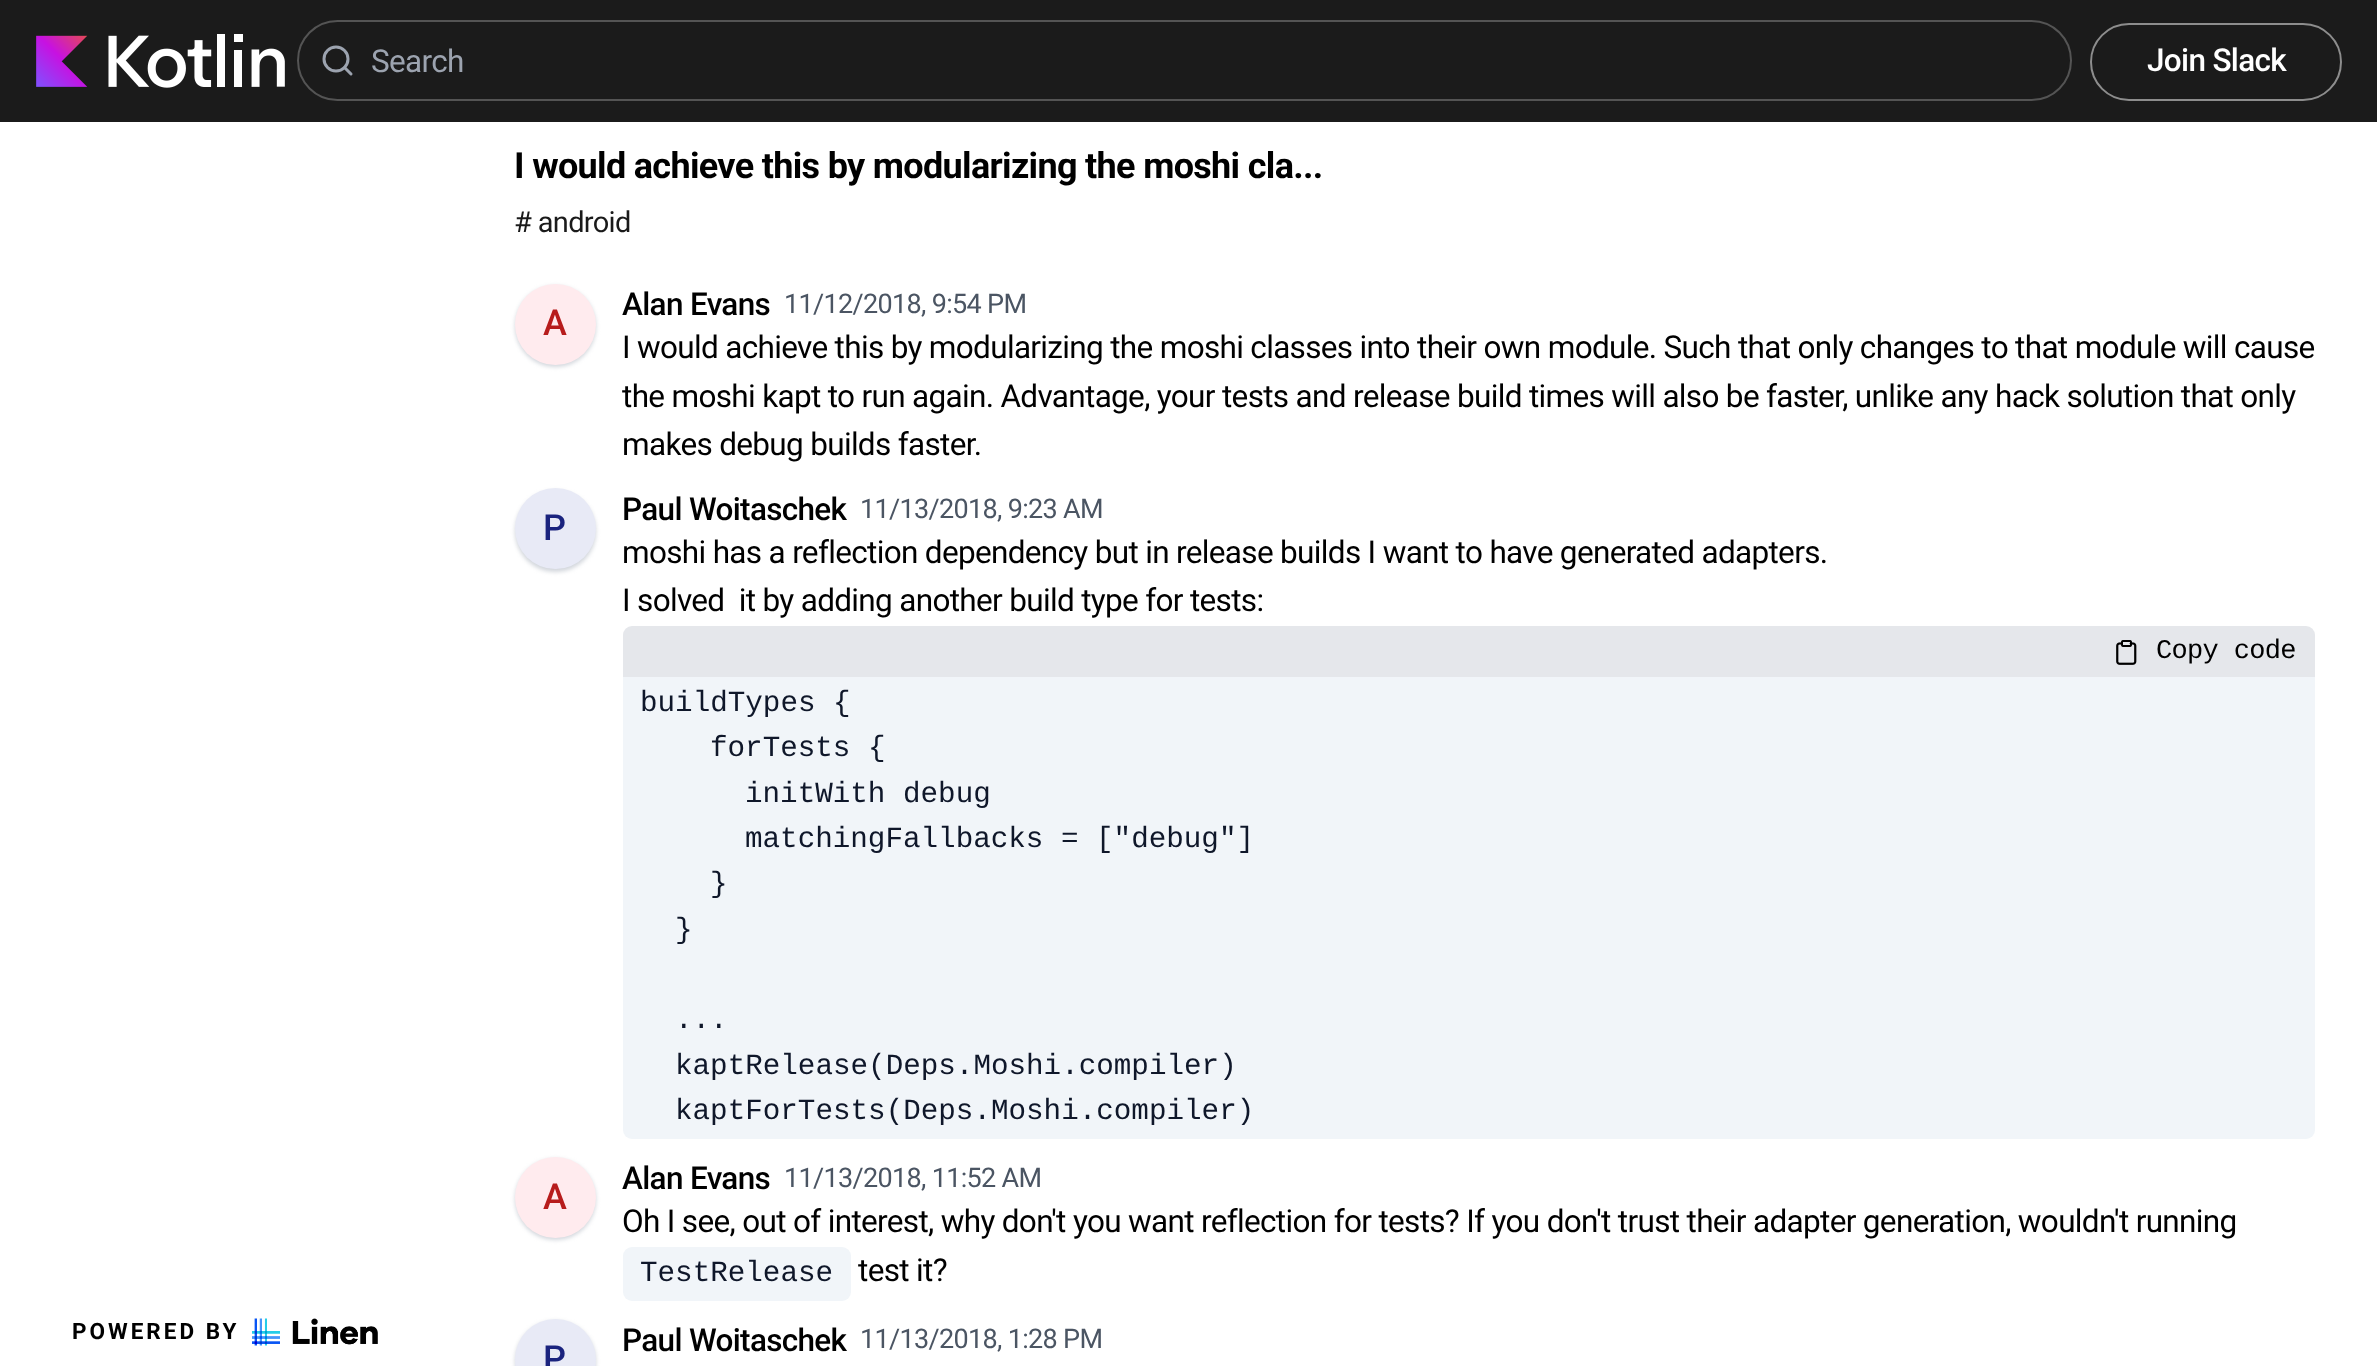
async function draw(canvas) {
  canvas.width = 2377
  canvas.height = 1366
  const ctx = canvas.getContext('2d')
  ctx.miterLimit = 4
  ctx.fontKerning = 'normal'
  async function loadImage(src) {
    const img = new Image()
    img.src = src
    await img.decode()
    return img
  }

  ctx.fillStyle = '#fff'
  ctx.fillRect(0, 0, 2377, 1366)
  ctx.fillStyle = '#1b1b1b'
  ctx.fillRect(0, 0, 2377, 122)
  ctx.drawImage(await loadImage('image0.png'), 36, 34, 249, 54)
  ctx.beginPath()
  ctx.roundRect(298, 21, 1773, 79, 39.5)
  ctx.strokeStyle = '#545454'
  ctx.lineWidth = 2
  ctx.stroke()
  ctx.beginPath()
  ctx.arc(336, 59, 12, 0, 2 * Math.PI)
  ctx.strokeStyle = '#9ca3af'
  ctx.lineWidth = 3
  ctx.stroke()
  ctx.beginPath()
  ctx.moveTo(351, 74)
  ctx.lineTo(344.5, 67.5)
  ctx.lineCap = 'round'
  ctx.lineJoin = 'round'
  ctx.stroke()
  ctx.letterSpacing = '-0.67px'
  ctx.font = '31.5px Roboto'
  ctx.fillStyle = '#9ca3af'
  ctx.fillText('Search', 371, 72)
  ctx.beginPath()
  ctx.roundRect(2091, 24, 250, 76, 38)
  ctx.strokeStyle = '#8d8d8d'
  ctx.lineWidth = 2
  ctx.lineJoin = 'miter'
  ctx.stroke()
  ctx.font = '500 31.5px Roboto'
  ctx.fillStyle = '#fff'
  ctx.fillText('Join Slack', 2147, 71)
  ctx.letterSpacing = '3px'
  ctx.font = 'bold 22.5px Roboto'
  ctx.fillStyle = '#000'
  ctx.fillText('POWERED BY', 72, 1339)
  ctx.drawImage(await loadImage('image1.png'), 252, 1318, 126, 28)
  ctx.letterSpacing = '-0.67px'
  ctx.font = 'bold 36px Roboto'
  ctx.fillText('I would achieve this by modularizing the moshi cla...', 514, 178)
  ctx.font = '29px Roboto'
  ctx.fillStyle = '#1a1a1a'
  ctx.fillText('# android', 514, 232)
  ctx.fillStyle = '#d1d5db'
  ctx.filter = 'blur(2px)'
  ctx.beginPath()
  ctx.roundRect(515, 286, 81, 81, 40.5)
  ctx.fill()
  ctx.filter = 'none'
  ctx.fillStyle = '#ffebee'
  ctx.beginPath()
  ctx.arc(555.5, 324.5, 40.5, 0, 2 * Math.PI)
  ctx.fill()
  ctx.font = '500 36px Roboto'
  ctx.fillStyle = '#b71c1c'
  ctx.fillText('A', 543, 335)
  ctx.font = '500 31.5px Roboto'
  ctx.fillStyle = '#000'
  ctx.fillText('Alan Evans', 622, 315)
  ctx.font = '27px Roboto'
  ctx.fillStyle = '#4b5563'
  ctx.fillText('11/12/2018, 9:54 PM', 784, 313)
  ctx.font = '31.5px Roboto'
  ctx.fillStyle = '#000'
  ctx.fillText('I would achieve this by modularizing the moshi classes into their own module. Such that only changes to that module will cause', 622, 358)
  ctx.fillText('the moshi kapt to run again. Advantage, your tests and release build times will also be faster, unlike any hack solution that only', 622, 407)
  ctx.fillText('makes debug builds faster.', 622, 455)
  ctx.fillStyle = '#d1d5db'
  ctx.filter = 'blur(2px)'
  ctx.beginPath()
  ctx.roundRect(515, 491, 81, 81, 40.5)
  ctx.fill()
  ctx.filter = 'none'
  ctx.fillStyle = '#e8eaf6'
  ctx.beginPath()
  ctx.arc(555.5, 528.5, 40.5, 0, 2 * Math.PI)
  ctx.fill()
  ctx.font = '500 36px Roboto'
  ctx.fillStyle = '#1a237e'
  ctx.fillText('P', 543, 540)
  ctx.font = '500 31.5px Roboto'
  ctx.fillStyle = '#000'
  ctx.fillText('Paul Woitaschek', 622, 520)
  ctx.font = '27px Roboto'
  ctx.fillStyle = '#4b5563'
  ctx.fillText('11/13/2018, 9:23 AM', 860, 518)
  ctx.font = '31.5px Roboto'
  ctx.fillStyle = '#000'
  ctx.fillText('moshi has a reflection dependency but in release builds I want to have generated adapters.', 622, 563)
  ctx.fillText('I solved  it by adding another build type for tests:', 622, 611)
  ctx.fillStyle = '#e5e7eb'
  ctx.beginPath()
  ctx.roundRect(623, 626, 1692, 51, [9, 9, 0, 0])
  ctx.fill()
  ctx.drawImage(await loadImage('image2.png'), 2116, 640, 21, 25)
  ctx.font = '27px Liberation Mono'
  ctx.fillStyle = '#000'
  ctx.fillText('Copy code', 2156, 658)
  ctx.fillStyle = '#f1f5f9'
  ctx.beginPath()
  ctx.roundRect(623, 677, 1692, 462, [0, 0, 9, 9])
  ctx.fill()
  ctx.letterSpacing = '0px'
  ctx.font = '29.25px Liberation Mono'
  ctx.fillStyle = '#0f172a'
  ctx.fillText('buildTypes {', 640, 711)
  ctx.fillText('forTests {', 710, 756)
  ctx.fillText('initWith debug', 745, 802)
  ctx.fillText('matchingFallbacks = ["debug"]', 745, 847)
  ctx.fillText('}', 710, 892)
  ctx.fillText('}', 675, 938)
  ctx.fillText('...', 675, 1028)
  ctx.fillText('kaptRelease(Deps.Moshi.compiler)', 675, 1074)
  ctx.fillText('kaptForTests(Deps.Moshi.compiler)', 675, 1119)
  ctx.fillStyle = '#d1d5db'
  ctx.filter = 'blur(2px)'
  ctx.beginPath()
  ctx.roundRect(515, 1159, 81, 81, 40.5)
  ctx.fill()
  ctx.filter = 'none'
  ctx.fillStyle = '#ffebee'
  ctx.beginPath()
  ctx.arc(555.5, 1197.5, 40.5, 0, 2 * Math.PI)
  ctx.fill()
  ctx.letterSpacing = '-0.67px'
  ctx.font = '500 36px Roboto'
  ctx.fillStyle = '#b71c1c'
  ctx.fillText('A', 543, 1209)
  ctx.font = '500 31.5px Roboto'
  ctx.fillStyle = '#000'
  ctx.fillText('Alan Evans', 622, 1189)
  ctx.font = '27px Roboto'
  ctx.fillStyle = '#4b5563'
  ctx.fillText('11/13/2018, 11:52 AM', 784, 1187)
  ctx.font = '31.5px Roboto'
  ctx.fillStyle = '#000'
  ctx.fillText('Oh I see, out of interest, why don\'t you want reflection for tests? If you don\'t trust their adapter generation, wouldn\'t running', 622, 1232)
  ctx.fillStyle = '#f1f5f9'
  ctx.beginPath()
  ctx.roundRect(623, 1247, 228, 54, 9)
  ctx.fill()
  ctx.letterSpacing = '0px'
  ctx.font = '29.25px Liberation Mono'
  ctx.fillStyle = '#0f172a'
  ctx.fillText('TestRelease', 640, 1281)
  ctx.letterSpacing = '-0.67px'
  ctx.font = '31.5px Roboto'
  ctx.fillStyle = '#000'
  ctx.fillText('test it?', 858, 1281)
  ctx.font = '500 31.5px Roboto'
  ctx.fillText('Paul Woitaschek', 622, 1351)
  ctx.font = '27px Roboto'
  ctx.fillStyle = '#4b5563'
  ctx.fillText('11/13/2018, 1:28 PM', 860, 1348)
  ctx.fillStyle = '#d1d5db'
  ctx.filter = 'blur(2px)'
  ctx.beginPath()
  ctx.roundRect(515, 1321, 81, 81, 40.5)
  ctx.fill()
  ctx.filter = 'none'
  ctx.fillStyle = '#e8eaf6'
  ctx.beginPath()
  ctx.arc(555.5, 1359.5, 40.5, 0, 2 * Math.PI)
  ctx.fill()
  ctx.font = '500 36px Roboto'
  ctx.fillStyle = '#1a237e'
  ctx.fillText('P', 543, 1371)
}

draw(document.querySelector('canvas'))
